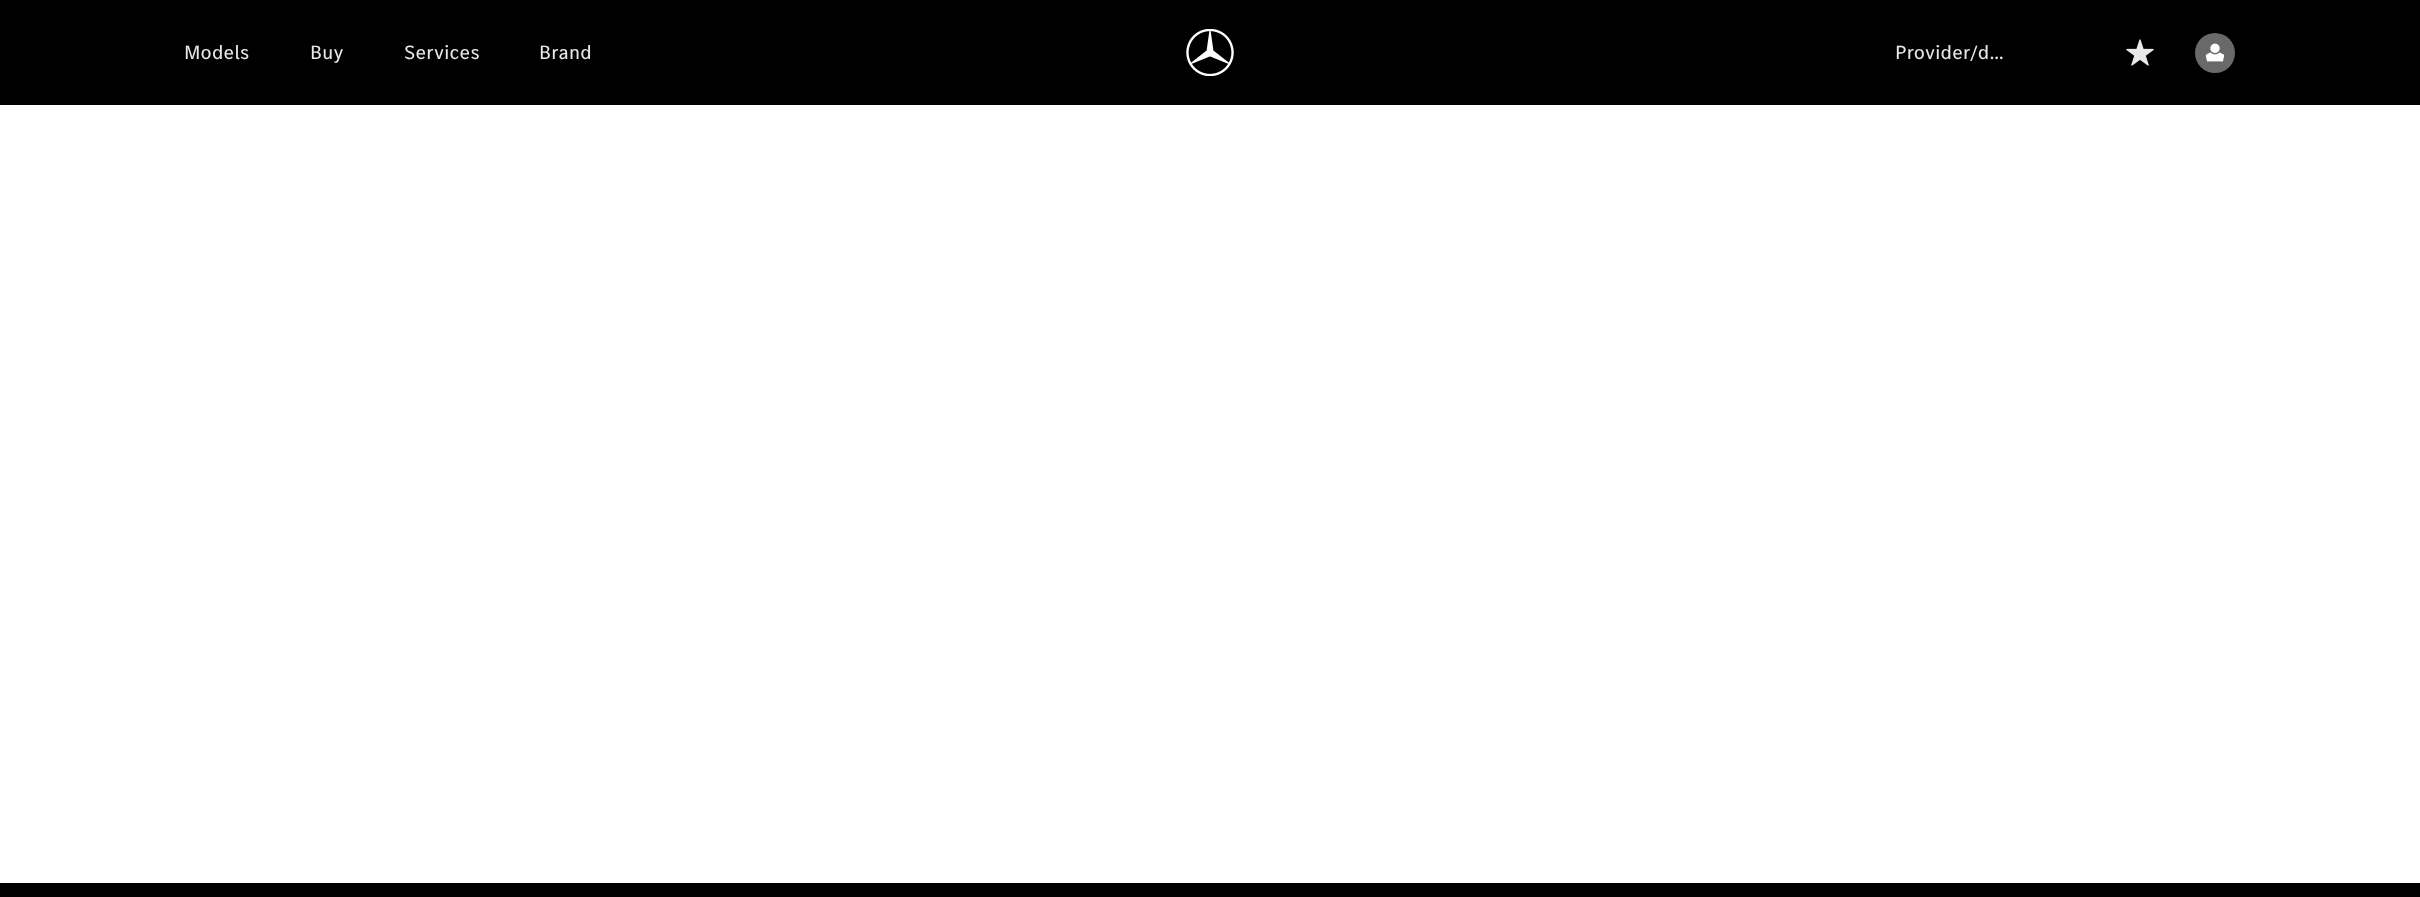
async function draw(canvas) {
  canvas.width = 2420
  canvas.height = 897
  const ctx = canvas.getContext('2d')
  ctx.miterLimit = 4
  ctx.fontKerning = 'normal'
  async function loadImage(src) {
    const img = new Image()
    img.src = src
    await img.decode()
    return img
  }

  ctx.fillStyle = '#fff'
  ctx.fillRect(0, 0, 2420, 897)
  ctx.fillStyle = '#000'
  ctx.fillRect(0, 0, 2420, 105)
  ctx.letterSpacing = '0.25px'
  ctx.font = '20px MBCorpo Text'
  ctx.fillStyle = '#e8e8e8'
  ctx.fillText('Models', 184, 59)
  ctx.fillText('Buy', 310, 59)
  ctx.fillText('Services', 404, 59)
  ctx.fillText('Brand', 539, 59)
  ctx.drawImage(await loadImage('image0.png'), 1186, 29, 48, 47)
  ctx.fillText('Provider/d…', 1895, 59)
  ctx.drawImage(await loadImage('image1.png'), 2126, 39, 28, 27)
  ctx.fillStyle = '#696969'
  ctx.beginPath()
  ctx.arc(2215, 53, 20, 0, 2 * Math.PI)
  ctx.fill()
  ctx.drawImage(await loadImage('image2.png'), 2205, 43, 20, 19)
  ctx.fillStyle = '#000'
  ctx.fillRect(0, 883, 2420, 14)
}

draw(document.querySelector('canvas'))
